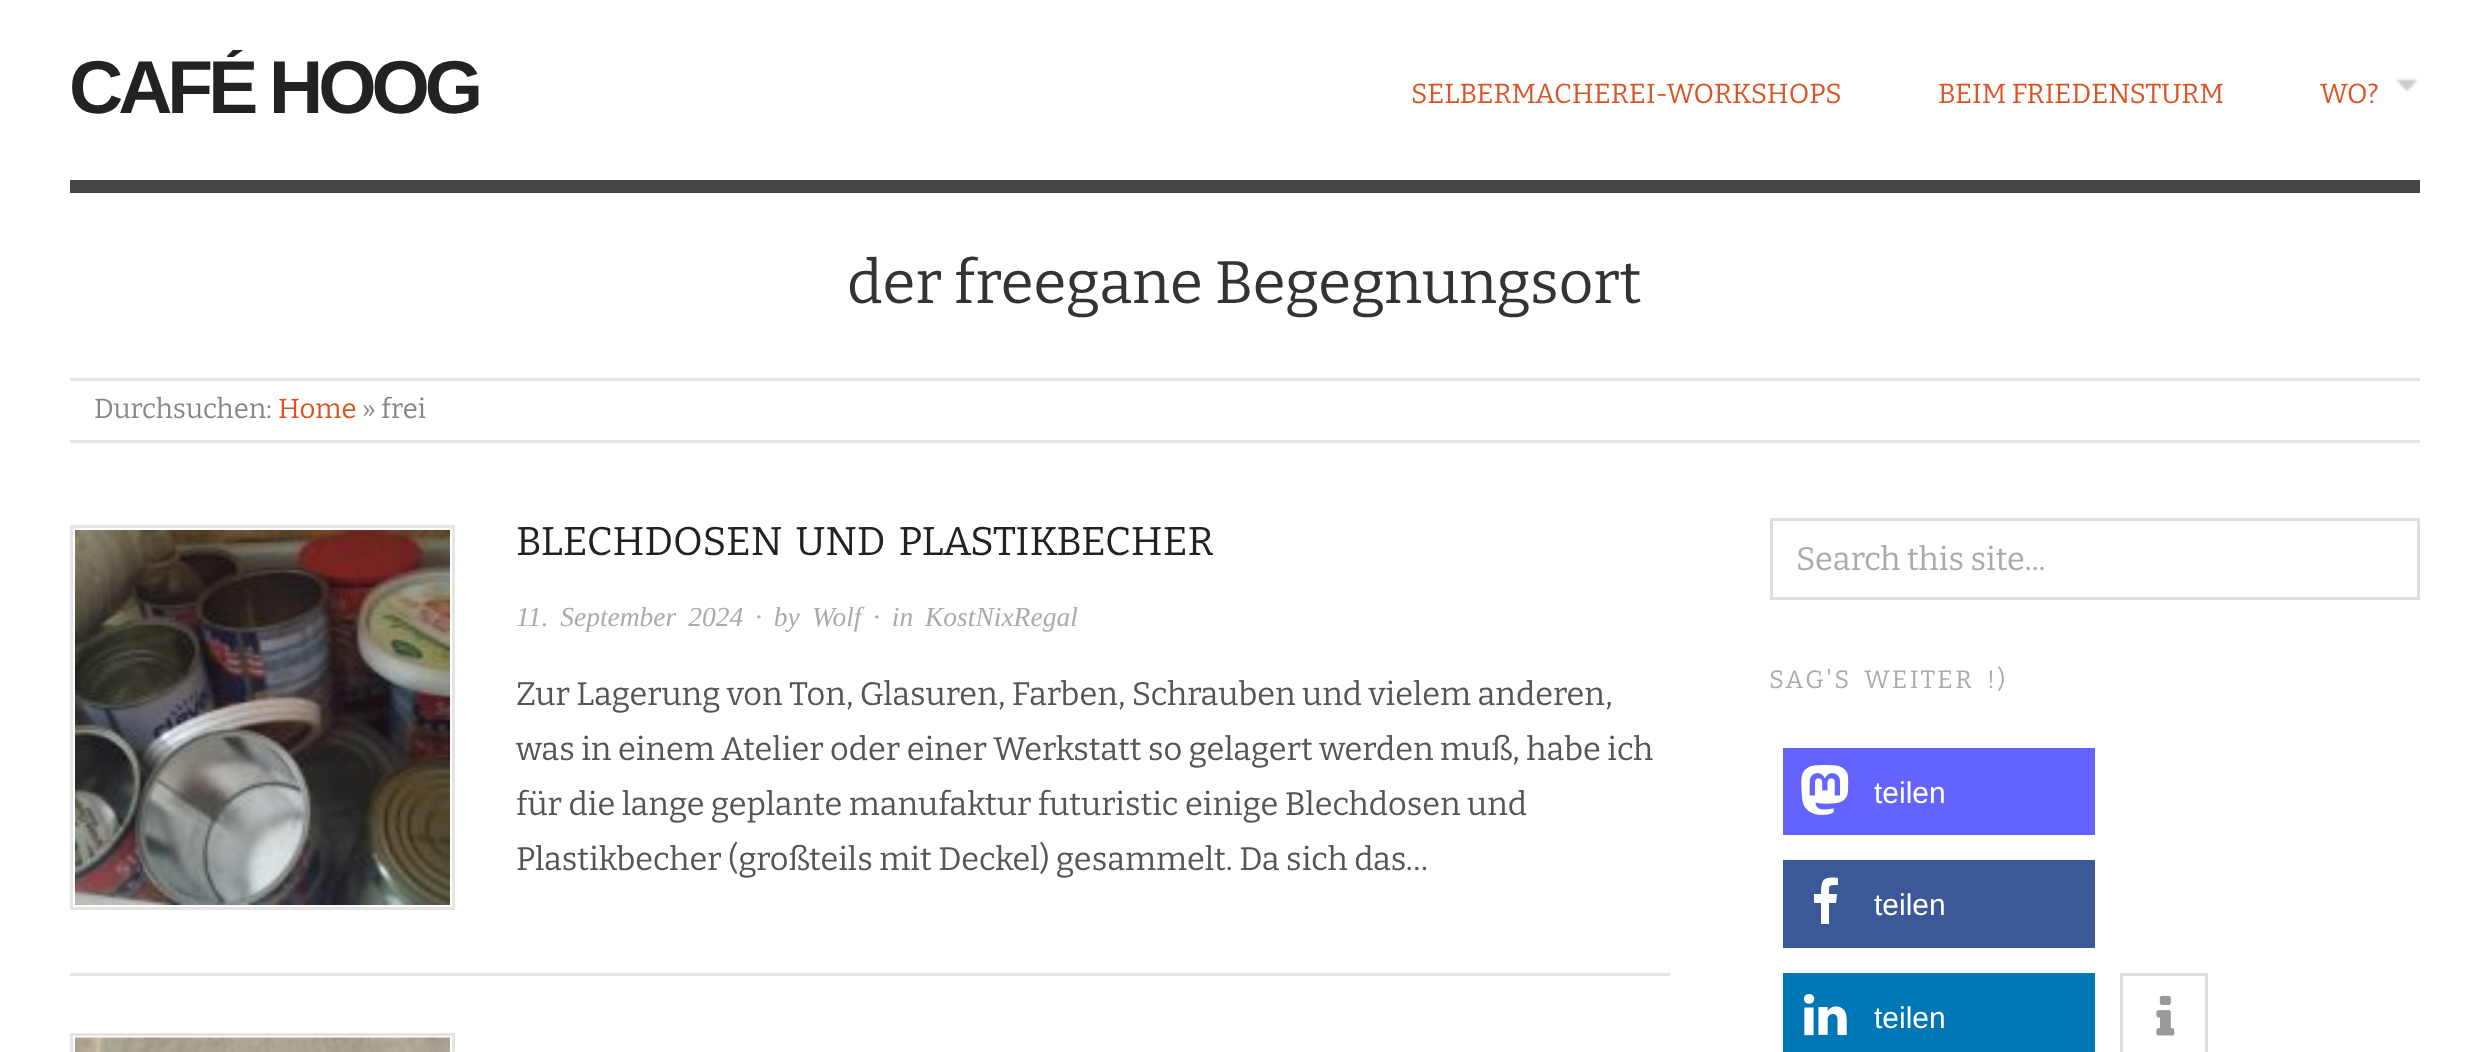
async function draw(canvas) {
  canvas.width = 2487
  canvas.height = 1052
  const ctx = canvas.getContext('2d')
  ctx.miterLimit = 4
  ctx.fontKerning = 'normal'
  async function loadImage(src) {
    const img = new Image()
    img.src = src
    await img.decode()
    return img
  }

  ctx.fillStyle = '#fff'
  ctx.fillRect(0, 0, 2487, 1052)
  ctx.save()
  ctx.beginPath()
  ctx.rect(70, 50, 588, 125)
  ctx.clip()
  ctx.letterSpacing = '-5px'
  ctx.font = 'bold 75px Liberation Sans'
  ctx.fillStyle = '#222'
  ctx.fillText('CAFÉ HOOG', 69, 113)
  ctx.restore()
  ctx.font = '27.5px Bitter'
  ctx.fillStyle = '#dd5424'
  ctx.fillText('SELBERMACHEREI-WORKSHOPS', 1411, 103)
  ctx.fillText('BEIM FRIEDENSTURM', 1938, 103)
  ctx.drawImage(await loadImage('image0.png'), 2396, 77, 22, 16)
  ctx.fillText('WO?', 2320, 103)
  ctx.fillStyle = '#444'
  ctx.fillRect(70, 180, 2350, 13)
  ctx.font = '60px Bitter'
  ctx.fillStyle = '#333'
  ctx.fillText('der freegane Begegnungsort', 847, 303)
  ctx.fillStyle = '#e5e5e5'
  ctx.fillRect(70, 378, 2350, 3)
  ctx.fillRect(70, 440, 2350, 3)
  ctx.font = '27.5px Bitter'
  ctx.fillStyle = '#888'
  ctx.fillText('Durchsuchen:', 94, 418)
  ctx.fillStyle = '#dd5424'
  ctx.fillText('Home', 278, 418)
  ctx.fillStyle = '#888'
  ctx.fillText('» frei', 362, 418)
  ctx.fillStyle = '#e5e5e5'
  ctx.fillRect(70, 973, 1600, 3)
  ctx.strokeStyle = '#e5e5e5'
  ctx.lineWidth = 3
  ctx.strokeRect(71.5, 526.5, 382, 382)
  ctx.drawImage(await loadImage('image1.png'), 75, 530, 375, 375)
  ctx.wordSpacing = '5px'
  ctx.font = '40px Bitter'
  ctx.fillStyle = '#222'
  ctx.fillText('BLECHDOSEN UND PLASTIKBECHER', 516, 555)
  ctx.font = 'italic 27.5px Liberation Serif'
  ctx.fillStyle = '#aaa'
  ctx.fillText('11. September 2024', 516, 626)
  ctx.fillText('· by', 755, 626)
  ctx.wordSpacing = '0px'
  ctx.fillText('Wolf', 812, 626)
  ctx.wordSpacing = '5px'
  ctx.fillText('· in', 873, 626)
  ctx.wordSpacing = '0px'
  ctx.fillText('KostNixRegal', 925, 626)
  ctx.font = '32.5px Bitter'
  ctx.fillStyle = '#555'
  ctx.fillText('Zur Lagerung von Ton, Glasuren, Farben, Schrauben und vielem anderen,', 516, 705)
  ctx.fillText('was in einem Atelier oder einer Werkstatt so gelagert werden muß, habe ich', 516, 760)
  ctx.fillText('für die lange geplante manufaktur futuristic einige Blechdosen und', 516, 815)
  ctx.fillText('Plastikbecher (großteils mit Deckel) gesammelt. Da sich das…', 516, 870)
  ctx.strokeRect(71.5, 1034.5, 382, 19)
  ctx.drawImage(await loadImage('image2.png'), 75, 1037, 375, 15)
  ctx.strokeStyle = '#ddd'
  ctx.strokeRect(1771.5, 519.5, 647, 79)
  ctx.fillStyle = '#aaa'
  ctx.fillText('Search this site...', 1796, 570)
  ctx.letterSpacing = '2.5px'
  ctx.wordSpacing = '5px'
  ctx.font = '25px Bitter'
  ctx.fillText('SAG\'S WEITER !)', 1769, 688)
  ctx.fillStyle = '#6364ff'
  ctx.fillRect(1783, 748, 312, 87)
  ctx.drawImage(await loadImage('image3.png'), 1801, 765, 48, 50)
  ctx.letterSpacing = '0px'
  ctx.wordSpacing = '0px'
  ctx.font = '30px Liberation Sans'
  ctx.fillStyle = '#fff'
  ctx.fillText('teilen', 1874, 803)
  ctx.fillStyle = '#3b5998'
  ctx.fillRect(1783, 860, 312, 88)
  ctx.fillStyle = '#fff'
  ctx.beginPath()
  ctx.moveTo(1838, 878)
  ctx.lineTo(1838, 885)
  ctx.bezierCurveTo(1828, 885, 1829, 885, 1829, 894)
  ctx.lineTo(1837, 894)
  ctx.lineTo(1836, 903)
  ctx.lineTo(1829, 903)
  ctx.lineTo(1829, 924)
  ctx.lineTo(1821, 924)
  ctx.lineTo(1821, 903)
  ctx.lineTo(1814, 903)
  ctx.lineTo(1814, 894)
  ctx.lineTo(1821, 894)
  ctx.bezierCurveTo(1821, 880, 1823, 876, 1838, 878)
  ctx.closePath()
  ctx.fill()
  ctx.fillText('teilen', 1874, 915)
  ctx.fillStyle = '#0077b5'
  ctx.fillRect(1783, 973, 312, 79)
  ctx.drawImage(await loadImage('image4.png'), 1803, 994, 44, 42)
  ctx.fillStyle = '#fff'
  ctx.fillText('teilen', 1874, 1028)
  ctx.strokeRect(2121.5, 974.5, 85, 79)
  ctx.drawImage(await loadImage('image5.png'), 2156, 995, 19, 41)
}

draw(document.querySelector('canvas'))
